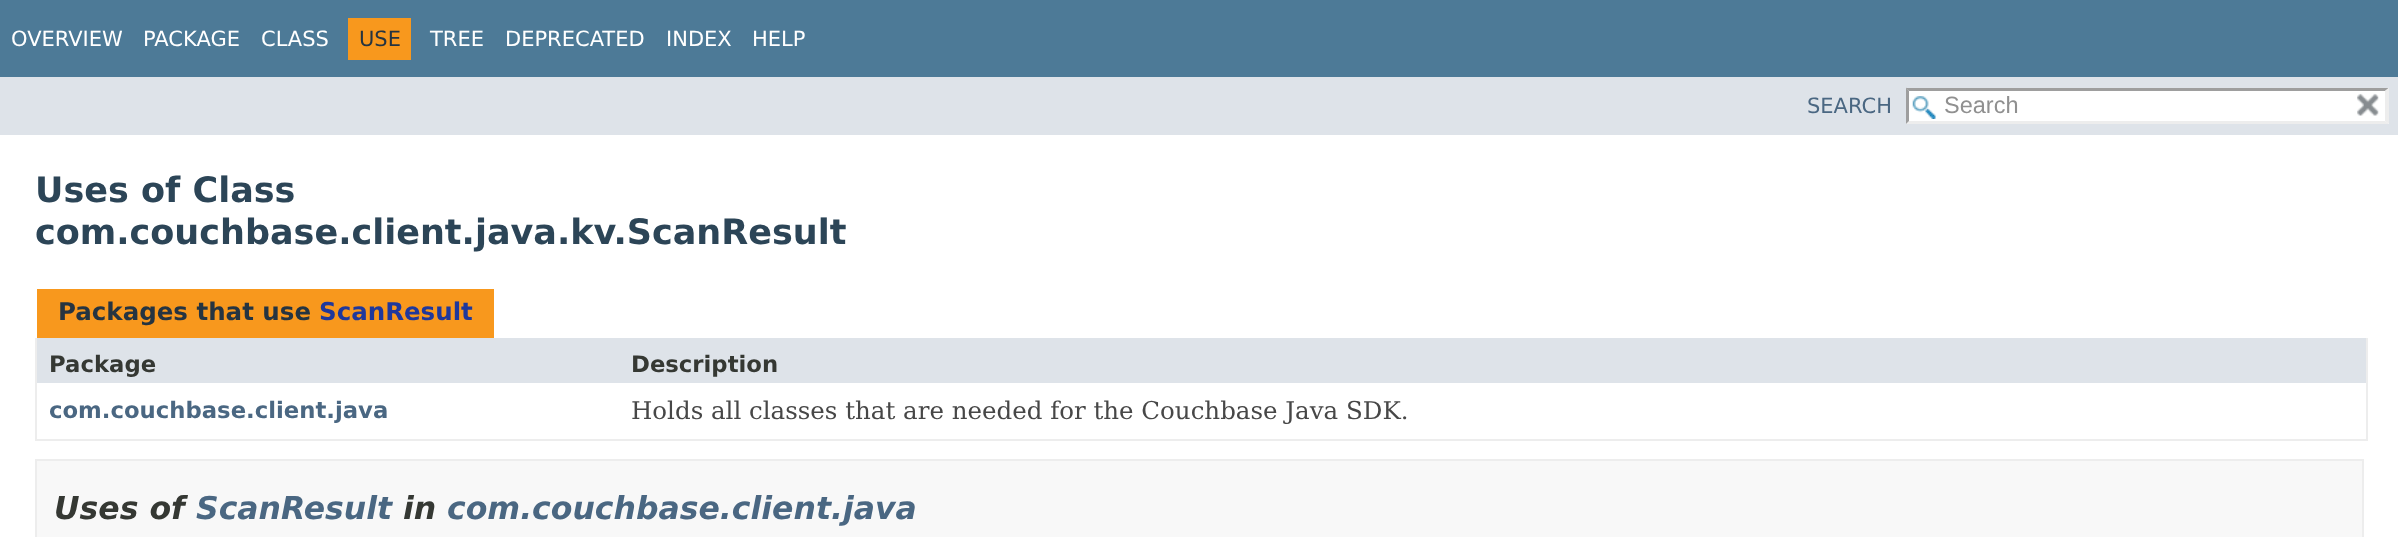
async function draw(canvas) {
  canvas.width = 2398
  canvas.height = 537
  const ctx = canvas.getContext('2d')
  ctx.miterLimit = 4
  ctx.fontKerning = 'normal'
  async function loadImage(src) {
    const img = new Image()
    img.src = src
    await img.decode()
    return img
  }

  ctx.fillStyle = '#fff'
  ctx.fillRect(0, 0, 2398, 537)
  ctx.fillStyle = '#4d7a97'
  ctx.fillRect(0, 0, 2398, 77)
  ctx.font = '21px DejaVu Sans'
  ctx.fillStyle = '#fff'
  ctx.fillText('OVERVIEW', 11, 46)
  ctx.fillText('PACKAGE', 143, 46)
  ctx.fillText('CLASS', 261, 46)
  ctx.fillStyle = '#f8981d'
  ctx.fillRect(348, 18, 63, 42)
  ctx.fillStyle = '#253441'
  ctx.fillText('USE', 359, 46)
  ctx.fillStyle = '#fff'
  ctx.fillText('TREE', 430, 46)
  ctx.fillText('DEPRECATED', 505, 46)
  ctx.fillText('INDEX', 666, 46)
  ctx.fillText('HELP', 752, 46)
  ctx.fillStyle = '#dee3e9'
  ctx.fillRect(0, 77, 2398, 58)
  ctx.fillStyle = '#4a6782'
  ctx.fillText('SEARCH', 1807, 113)
  ctx.fillStyle = '#fff'
  ctx.fillRect(1906, 88, 483, 36)
  ctx.drawImage(await loadImage('image0.png'), 1912, 96, 24, 23)
  ctx.fillStyle = '#9e9e9e'
  ctx.beginPath()
  ctx.moveTo(1906, 88)
  ctx.lineTo(2389, 88)
  ctx.lineTo(2385, 91)
  ctx.lineTo(1909, 91)
  ctx.closePath()
  ctx.fill()
  ctx.fillStyle = '#ededed'
  ctx.beginPath()
  ctx.moveTo(2389, 87.5)
  ctx.lineTo(2389, 124)
  ctx.lineTo(2385, 121)
  ctx.lineTo(2385, 91)
  ctx.closePath()
  ctx.fill()
  ctx.beginPath()
  ctx.moveTo(2389, 124)
  ctx.lineTo(1906, 124)
  ctx.lineTo(1909, 121)
  ctx.lineTo(2385, 121)
  ctx.closePath()
  ctx.fill()
  ctx.fillStyle = '#9e9e9e'
  ctx.beginPath()
  ctx.moveTo(1906, 124)
  ctx.lineTo(1906, 87.5)
  ctx.lineTo(1909, 91)
  ctx.lineTo(1909, 121)
  ctx.closePath()
  ctx.fill()
  ctx.font = '23.5px Liberation Sans'
  ctx.fillStyle = '#909090'
  ctx.fillText('Search', 1944, 113)
  ctx.drawImage(await loadImage('image1.png'), 2357, 93, 22, 23)
  ctx.font = 'bold 35px DejaVu Sans'
  ctx.fillStyle = '#2c4557'
  ctx.fillText('Uses of Class', 35, 202)
  ctx.fillText('com.couchbase.client.java.kv.ScanResult', 35, 244)
  ctx.fillStyle = '#f8981d'
  ctx.fillRect(37, 289, 457, 49)
  ctx.font = 'bold 24.5px DejaVu Sans'
  ctx.fillStyle = '#253441'
  ctx.fillText('Packages that use', 58, 320)
  ctx.fillStyle = '#1f389c'
  ctx.fillText('ScanResult', 319, 320)
  ctx.fillStyle = '#ededed'
  ctx.fillRect(2366, 338, 2, 103)
  ctx.fillRect(35, 439, 2333, 2)
  ctx.fillRect(35, 338, 2, 103)
  ctx.fillStyle = '#dee3e9'
  ctx.fillRect(37, 338, 2329, 45)
  ctx.font = 'bold 22.75px DejaVu Sans'
  ctx.fillStyle = '#353833'
  ctx.fillText('Package', 49, 372)
  ctx.fillText('Description', 631, 372)
  ctx.fillStyle = '#4a6782'
  ctx.fillText('com.couchbase.client.java', 49, 418)
  ctx.font = '24.5px DejaVu Serif'
  ctx.fillStyle = '#474747'
  ctx.fillText('Holds all classes that are needed for the Couchbase Java SDK.', 631, 419)
  ctx.fillStyle = '#f8f8f8'
  ctx.beginPath()
  ctx.rect(36, 460, 2327, 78)
  ctx.fill()
  ctx.strokeStyle = '#ededed'
  ctx.lineWidth = 2
  ctx.stroke()
  ctx.font = 'italic bold 31.5px DejaVu Sans'
  ctx.fillStyle = '#353833'
  ctx.fillText('Uses of', 54, 519)
  ctx.fillStyle = '#4a6782'
  ctx.fillText('ScanResult', 196, 519)
  ctx.fillStyle = '#353833'
  ctx.fillText('in', 403, 519)
  ctx.fillStyle = '#4a6782'
  ctx.fillText('com.couchbase.client.java', 447, 519)
}

draw(document.querySelector('canvas'))
